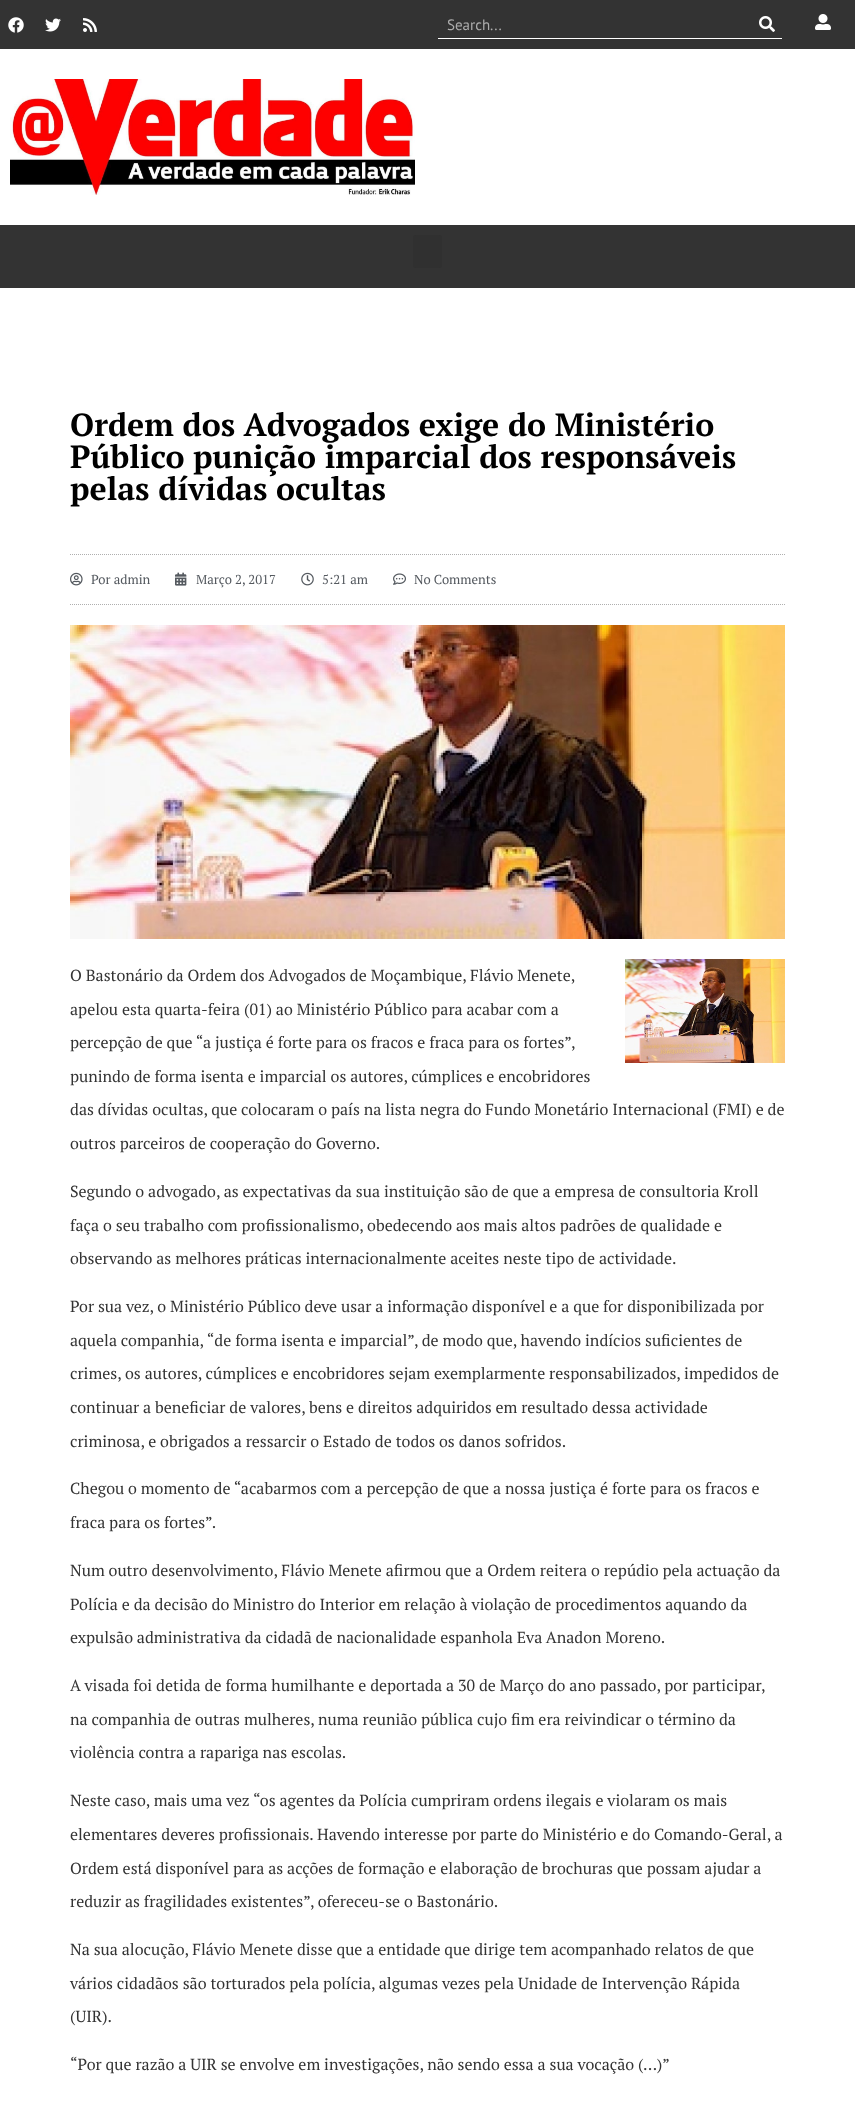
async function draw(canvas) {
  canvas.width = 855
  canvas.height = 2112
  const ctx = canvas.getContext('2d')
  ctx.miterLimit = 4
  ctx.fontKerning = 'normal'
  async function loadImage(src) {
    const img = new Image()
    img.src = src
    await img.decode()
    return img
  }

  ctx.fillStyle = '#fff'
  ctx.fillRect(0, 0, 855, 2112)
  ctx.fillStyle = '#333'
  ctx.fillRect(0, 0, 855, 49)
  ctx.drawImage(await loadImage('image0.png'), 8, 17, 16, 16)
  ctx.drawImage(await loadImage('image1.png'), 45, 18, 16, 14)
  ctx.drawImage(await loadImage('image2.png'), 83, 18, 14, 14)
  ctx.fillStyle = '#fff'
  ctx.fillRect(438, 38, 344, 1)
  ctx.font = '15px PT Sans'
  ctx.fillStyle = '#adadad'
  ctx.fillText('Search...', 447, 30)
  ctx.drawImage(await loadImage('image3.png'), 759, 16, 16, 16)
  ctx.drawImage(await loadImage('image4.png'), 815, 14, 16, 16)
  ctx.drawImage(await loadImage('image5.png'), 10, 79, 405, 116)
  ctx.fillStyle = '#333'
  ctx.fillRect(0, 225, 855, 63)
  ctx.fillStyle = '#303030'
  ctx.beginPath()
  ctx.roundRect(413, 235, 29, 33, 3)
  ctx.fill()
  ctx.font = 'bold 32px PT Serif'
  ctx.fillStyle = '#000'
  ctx.fillText('Ordem dos Advogados exige do Ministério', 70, 436)
  ctx.fillText('Público punição imparcial dos responsáveis', 70, 468)
  ctx.fillText('pelas dívidas ocultas', 70, 500)
  ctx.beginPath()
  ctx.moveTo(70, 554.5)
  ctx.lineTo(785, 554.5)
  ctx.strokeStyle = '#afafaf'
  ctx.setLineDash([1, 1])
  ctx.stroke()
  ctx.beginPath()
  ctx.moveTo(70, 604.5)
  ctx.lineTo(785, 604.5)
  ctx.stroke()
  ctx.drawImage(await loadImage('image6.png'), 70, 572, 13, 14)
  ctx.font = '13px PT Serif'
  ctx.fillStyle = '#54595f'
  ctx.fillText('Por admin', 91, 584)
  ctx.drawImage(await loadImage('image7.png'), 175, 572, 12, 14)
  ctx.fillText('Março 2, 2017', 196, 584)
  ctx.drawImage(await loadImage('image8.png'), 301, 572, 13, 14)
  ctx.fillText('5:21 am', 322, 584)
  ctx.drawImage(await loadImage('image9.png'), 393, 573, 13, 12)
  ctx.fillText('No Comments', 414, 584)
  ctx.drawImage(await loadImage('image10.png'), 70, 625, 715, 314)
  ctx.font = '16px PT Serif'
  ctx.fillStyle = '#333'
  ctx.fillText('O Bastonário da Ordem dos Advogados de Moçambique, Flávio Menete,', 70, 981)
  ctx.drawImage(await loadImage('image11.png'), 625, 959, 160, 104)
  ctx.fillText('apelou esta quarta-feira (01) ao Ministério Público para acabar com a', 70, 1015)
  ctx.fillText('percepção de que “a justiça é forte para os fracos e fraca para os fortes”,', 70, 1048)
  ctx.fillText('punindo de forma isenta e imparcial os autores, cúmplices e encobridores', 70, 1082)
  ctx.fillText('das dívidas ocultas, que colocaram o país na lista negra do Fundo Monetário Internacional (FMI) e de', 70, 1115)
  ctx.fillText('outros parceiros de cooperação do Governo.', 70, 1149)
  ctx.fillText('Segundo o advogado, as expectativas da sua instituição são de que a empresa de consultoria Kroll', 70, 1197)
  ctx.fillText('faça o seu trabalho com profissionalismo, obedecendo aos mais altos padrões de qualidade e', 70, 1231)
  ctx.fillText('observando as melhores práticas internacionalmente aceites neste tipo de actividade.', 70, 1264)
  ctx.fillText('Por sua vez, o Ministério Público deve usar a informação disponível e a que for disponibilizada por', 70, 1312)
  ctx.fillText('aquela companhia, “de forma isenta e imparcial”, de modo que, havendo indícios suficientes de', 70, 1346)
  ctx.fillText('crimes, os autores, cúmplices e encobridores sejam exemplarmente responsabilizados, impedidos de', 70, 1379)
  ctx.fillText('continuar a beneficiar de valores, bens e direitos adquiridos em resultado dessa actividade', 70, 1413)
  ctx.fillText('criminosa, e obrigados a ressarcir o Estado de todos os danos sofridos.', 70, 1447)
  ctx.fillText('Chegou o momento de “acabarmos com a percepção de que a nossa justiça é forte para os fracos e', 70, 1494)
  ctx.fillText('fraca para os fortes”.', 70, 1528)
  ctx.fillText('Num outro desenvolvimento, Flávio Menete afirmou que a Ordem reitera o repúdio pela actuação da', 70, 1576)
  ctx.fillText('Polícia e da decisão do Ministro do Interior em relação à violação de procedimentos aquando da', 70, 1610)
  ctx.fillText('expulsão administrativa da cidadã de nacionalidade espanhola Eva Anadon Moreno.', 70, 1643)
  ctx.fillText('A visada foi detida de forma humilhante e deportada a 30 de Março do ano passado, por participar,', 70, 1691)
  ctx.fillText('na companhia de outras mulheres, numa reunião pública cujo fim era reivindicar o término da', 70, 1725)
  ctx.fillText('violência contra a rapariga nas escolas.', 70, 1758)
  ctx.fillText('Neste caso, mais uma vez “os agentes da Polícia cumpriram ordens ilegais e violaram os mais', 70, 1806)
  ctx.fillText('elementares deveres profissionais. Havendo interesse por parte do Ministério e do Comando-Geral, a', 70, 1840)
  ctx.fillText('Ordem está disponível para as acções de formação e elaboração de brochuras que possam ajudar a', 70, 1874)
  ctx.fillText('reduzir as fragilidades existentes”, ofereceu-se o Bastonário.', 70, 1907)
  ctx.fillText('Na sua alocução, Flávio Menete disse que a entidade que dirige tem acompanhado relatos de que', 70, 1955)
  ctx.fillText('vários cidadãos são torturados pela polícia, algumas vezes pela Unidade de Intervenção Rápida', 70, 1989)
  ctx.fillText('(UIR).', 70, 2022)
  ctx.fillText('“Por que razão a UIR se envolve em investigações, não sendo essa a sua vocação (…)”', 70, 2070)
}

draw(document.querySelector('canvas'))
